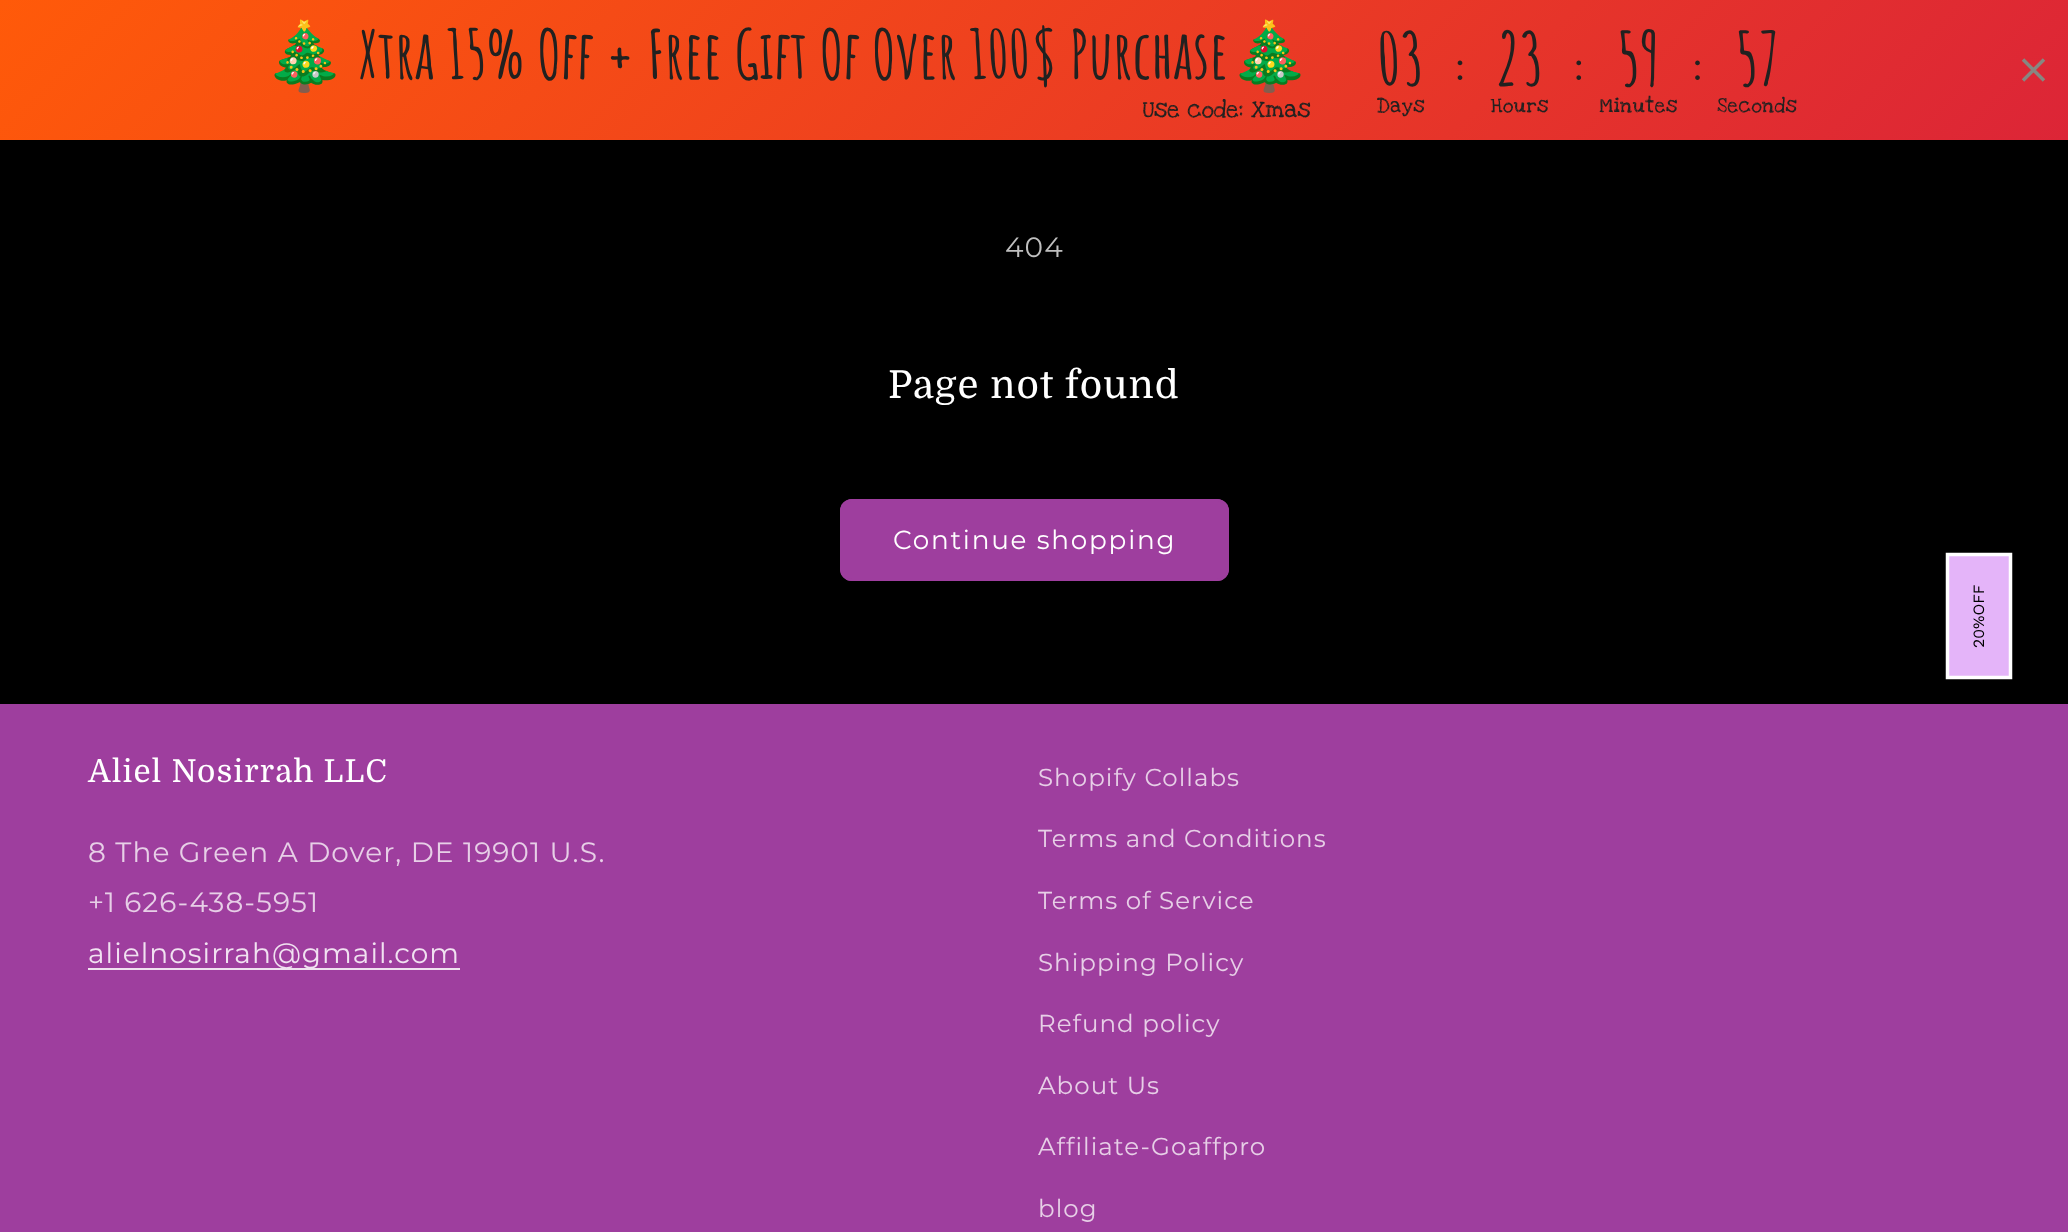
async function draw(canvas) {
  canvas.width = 2068
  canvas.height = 1232
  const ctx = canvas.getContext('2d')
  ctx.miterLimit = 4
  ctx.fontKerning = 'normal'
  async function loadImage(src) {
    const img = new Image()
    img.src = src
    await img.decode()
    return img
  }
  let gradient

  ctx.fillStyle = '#000'
  ctx.fillRect(0, 0, 2068, 1232)
  gradient = ctx.createLinearGradient(482, -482, 1586, 622)
  gradient.addColorStop(0, '#ff5a09')
  gradient.addColorStop(1, '#dc2537')
  ctx.fillStyle = gradient
  ctx.fillRect(0, 0, 2068, 140)
  ctx.font = 'bold 66.5px Noto Color Emoji'
  ctx.fillStyle = '#212120'
  ctx.fillText('🎄', 263, 79)
  ctx.font = 'bold 66.5px Amatic SC'
  ctx.fillText('Xtra 15% Off + Free Gift Of Over 100$ Purchase', 358, 79)
  ctx.font = 'bold 66.5px Noto Color Emoji'
  ctx.fillText('🎄', 1228, 79)
  ctx.font = '24.5px Love Ya Like A Sister'
  ctx.fillText('Use code: Xmas', 1143, 117)
  ctx.drawImage(await loadImage('image0.png'), 1377, 29, 420, 88)
  ctx.beginPath()
  ctx.moveTo(2044, 59.5)
  ctx.lineTo(2023, 80.5)
  ctx.moveTo(2044, 80.5)
  ctx.lineTo(2023, 59.5)
  ctx.strokeStyle = '#878781'
  ctx.lineWidth = 3.5
  ctx.stroke()
  ctx.letterSpacing = '1.05px'
  ctx.font = '28px Montserrat'
  ctx.fillStyle = '#bfbfbf'
  ctx.fillText('404', 1005, 257)
  ctx.font = '38.5px Domine'
  ctx.fillStyle = '#fff'
  ctx.fillText('Page not found', 888, 398)
  ctx.fillStyle = '#9e3e9e'
  ctx.beginPath()
  ctx.roundRect(840, 499, 389, 82, 12)
  ctx.fill()
  ctx.beginPath()
  ctx.roundRect(841, 500, 387, 80, 11)
  ctx.strokeStyle = '#9e3e9e'
  ctx.lineWidth = 2
  ctx.stroke()
  ctx.letterSpacing = '1.75px'
  ctx.font = '26.25px Montserrat'
  ctx.fillStyle = '#fff'
  ctx.fillText('Continue shopping', 893, 549)
  ctx.fillStyle = '#e4b4f9'
  ctx.fillRect(1949, 556, 60, 120)
  ctx.beginPath()
  ctx.moveTo(1947.5, 677.5)
  ctx.lineTo(1947.5, 554.5)
  ctx.lineTo(2010.5, 554.5)
  ctx.lineTo(2010.5, 677.5)
  ctx.closePath()
  ctx.strokeStyle = '#fff'
  ctx.lineWidth = 3.5
  ctx.stroke()
  ctx.letterSpacing = '0px'
  ctx.font = '15.75px Work Sans'
  ctx.fillStyle = '#000'
  ctx.save()
  ctx.translate(1984, 648)
  ctx.rotate(-90 * Math.PI / 180)
  ctx.fillText('20%OFF', 0, 0)
  ctx.restore()
  ctx.fillStyle = '#9e3e9e'
  ctx.fillRect(0, 704, 2068, 528)
  ctx.letterSpacing = '1.05px'
  ctx.font = '31.5px Domine'
  ctx.fillStyle = '#fff'
  ctx.fillText('Aliel Nosirrah LLC', 88, 782)
  ctx.font = '28px Montserrat'
  ctx.fillStyle = '#e7cfe7'
  ctx.fillText('8 The Green A Dover, DE 19901 U.S.', 88, 862)
  ctx.fillText('+1 626-438-5951', 88, 912)
  ctx.fillStyle = '#f0e2f0'
  ctx.fillRect(88, 968, 372, 2)
  ctx.fillStyle = '#f1e2f1'
  ctx.fillText('alielnosirrah@gmail.com', 88, 963)
  ctx.font = '24.5px Montserrat'
  ctx.fillStyle = '#e7cfe7'
  ctx.fillText('Shopify Collabs', 1038, 786)
  ctx.fillText('Terms and Conditions', 1038, 847)
  ctx.fillText('Terms of Service', 1038, 909)
  ctx.fillText('Shipping Policy', 1038, 971)
  ctx.fillText('Refund policy', 1038, 1032)
  ctx.fillText('About Us', 1038, 1094)
  ctx.fillText('Affiliate-Goaffpro', 1038, 1155)
  ctx.fillText('blog', 1038, 1217)
}

draw(document.querySelector('canvas'))
